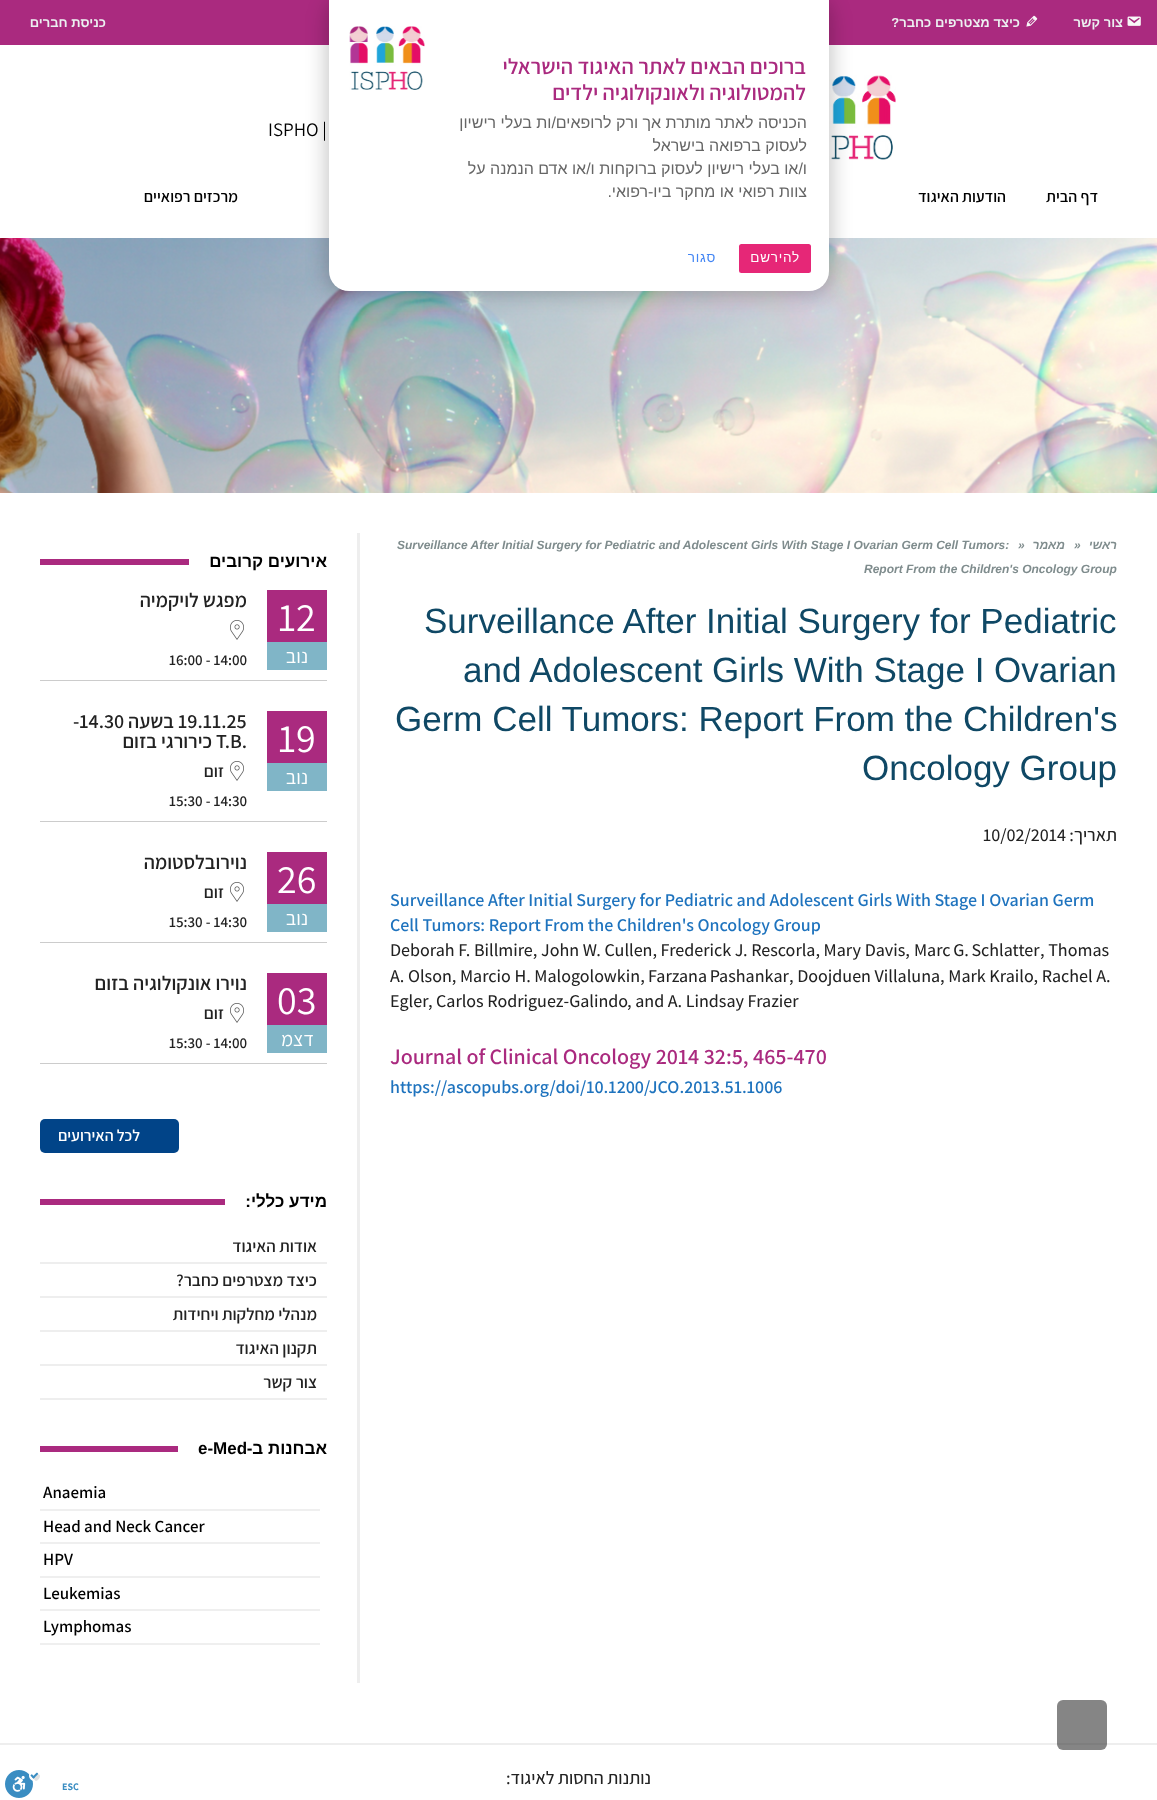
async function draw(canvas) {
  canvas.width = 1157
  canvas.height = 1800
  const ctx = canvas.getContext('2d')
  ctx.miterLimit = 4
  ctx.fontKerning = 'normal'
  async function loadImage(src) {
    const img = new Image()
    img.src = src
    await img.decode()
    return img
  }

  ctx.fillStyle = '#fff'
  ctx.fillRect(0, 0, 1157, 1800)
  ctx.fillStyle = '#aa2a7f'
  ctx.fillRect(0, 0, 1157, 45)
  ctx.direction = 'rtl'
  ctx.font = 'bold 13px Liberation Sans'
  ctx.fillStyle = '#ecf0f1'
  ctx.fillText('כניסת חברים', 106, 27)
  ctx.fillText('כיצד מצטרפים כחבר?', 1020, 27)
  ctx.drawImage(await loadImage('image0.png'), 1026, 15, 12, 12)
  ctx.fillText('צור קשר', 1123, 27)
  ctx.drawImage(await loadImage('image1.png'), 1127, 16, 14, 10)
  ctx.direction = 'ltr'
  ctx.font = '19px Assistant'
  ctx.fillStyle = '#000'
  ctx.fillText('ISPHO |', 268, 136)
  ctx.drawImage(await loadImage('image2.png'), 829, 75, 67, 85)
  ctx.direction = 'rtl'
  ctx.font = '600 16px Assistant'
  ctx.fillText('מרכזים רפואיים', 238, 202)
  ctx.fillText('הודעות האיגוד', 1006, 202)
  ctx.fillText('דף הבית', 1098, 202)
  ctx.drawImage(await loadImage('image3.png'), 0, 238, 1157, 255)
  ctx.fillStyle = '#aa2a7f'
  ctx.fillRect(40, 559, 149, 6)
  ctx.font = 'bold 17px Liberation Sans'
  ctx.fillStyle = '#000'
  ctx.fillText('אירועים קרובים', 327, 567)
  ctx.fillStyle = '#ccc'
  ctx.fillRect(40, 680, 287, 1)
  ctx.font = '600 20px Assistant'
  ctx.fillStyle = '#222'
  ctx.fillText('מפגש לויקמיה', 247, 607)
  ctx.drawImage(await loadImage('image4.png'), 230, 620, 14, 20)
  ctx.direction = 'ltr'
  ctx.font = '600 15px Assistant'
  ctx.fillText('16:00 - 14:00', 169, 665)
  ctx.fillStyle = '#aa2a7f'
  ctx.fillRect(267, 590, 60, 52)
  ctx.font = '40px Assistant'
  ctx.fillStyle = '#fff'
  ctx.fillText('12', 278, 631)
  ctx.fillStyle = '#80b5c7'
  ctx.fillRect(267, 642, 60, 28)
  ctx.direction = 'rtl'
  ctx.font = '20px Assistant'
  ctx.fillStyle = '#fff'
  ctx.fillText('נוב', 308, 663)
  ctx.fillStyle = '#ccc'
  ctx.fillRect(40, 821, 287, 1)
  ctx.direction = 'ltr'
  ctx.font = '600 20px Assistant'
  ctx.fillStyle = '#222'
  ctx.fillText('-14.30', 73, 728)
  ctx.direction = 'rtl'
  ctx.fillText('בשעה', 174, 728)
  ctx.direction = 'ltr'
  ctx.fillText('19.11.25', 178, 728)
  ctx.direction = 'rtl'
  ctx.fillText('כירורגי בזום', 212, 748)
  ctx.direction = 'ltr'
  ctx.fillText('T.B.', 216, 748)
  ctx.direction = 'rtl'
  ctx.font = '600 17px Assistant'
  ctx.fillText('זום', 224, 777)
  ctx.drawImage(await loadImage('image4.png'), 230, 761, 14, 20)
  ctx.direction = 'ltr'
  ctx.font = '600 15px Assistant'
  ctx.fillText('15:30 - 14:30', 169, 806)
  ctx.fillStyle = '#aa2a7f'
  ctx.fillRect(267, 711, 60, 52)
  ctx.font = '40px Assistant'
  ctx.fillStyle = '#fff'
  ctx.fillText('19', 278, 752)
  ctx.fillStyle = '#80b5c7'
  ctx.fillRect(267, 763, 60, 28)
  ctx.direction = 'rtl'
  ctx.font = '20px Assistant'
  ctx.fillStyle = '#fff'
  ctx.fillText('נוב', 308, 784)
  ctx.fillStyle = '#ccc'
  ctx.fillRect(40, 942, 287, 1)
  ctx.font = '600 20px Assistant'
  ctx.fillStyle = '#222'
  ctx.fillText('נוירובלסטומה', 247, 869)
  ctx.font = '600 17px Assistant'
  ctx.fillText('זום', 224, 898)
  ctx.drawImage(await loadImage('image4.png'), 230, 882, 14, 20)
  ctx.direction = 'ltr'
  ctx.font = '600 15px Assistant'
  ctx.fillText('15:30 - 14:30', 169, 927)
  ctx.fillStyle = '#aa2a7f'
  ctx.fillRect(267, 852, 60, 52)
  ctx.font = '40px Assistant'
  ctx.fillStyle = '#fff'
  ctx.fillText('26', 277, 893)
  ctx.fillStyle = '#80b5c7'
  ctx.fillRect(267, 904, 60, 28)
  ctx.direction = 'rtl'
  ctx.font = '20px Assistant'
  ctx.fillStyle = '#fff'
  ctx.fillText('נוב', 308, 925)
  ctx.fillStyle = '#ccc'
  ctx.fillRect(40, 1063, 287, 1)
  ctx.font = '600 20px Assistant'
  ctx.fillStyle = '#222'
  ctx.fillText('נוירו אונקולוגיה בזום', 247, 990)
  ctx.font = '600 17px Assistant'
  ctx.fillText('זום', 224, 1019)
  ctx.drawImage(await loadImage('image4.png'), 230, 1003, 14, 20)
  ctx.direction = 'ltr'
  ctx.font = '600 15px Assistant'
  ctx.fillText('15:30 - 14:00', 169, 1048)
  ctx.fillStyle = '#aa2a7f'
  ctx.fillRect(267, 973, 60, 52)
  ctx.font = '40px Assistant'
  ctx.fillStyle = '#fff'
  ctx.fillText('03', 277, 1014)
  ctx.fillStyle = '#80b5c7'
  ctx.fillRect(267, 1025, 60, 28)
  ctx.direction = 'rtl'
  ctx.font = '20px Assistant'
  ctx.fillStyle = '#fff'
  ctx.fillText('דצמ', 314, 1046)
  ctx.fillStyle = '#014488'
  ctx.beginPath()
  ctx.roundRect(40, 1119, 139, 34, 5)
  ctx.fill()
  ctx.font = '600 16px Assistant'
  ctx.fillStyle = '#fff'
  ctx.fillText('לכל האירועים', 140, 1141)
  ctx.fillStyle = '#aa2a7f'
  ctx.fillRect(40, 1199, 185, 6)
  ctx.font = 'bold 17px Liberation Sans'
  ctx.fillStyle = '#000'
  ctx.fillText('מידע כללי:', 327, 1207)
  ctx.fillStyle = '#eee'
  ctx.fillRect(40, 1262, 287, 2)
  ctx.font = '600 17px Assistant'
  ctx.fillStyle = '#222'
  ctx.fillText('אודות האיגוד', 317, 1252)
  ctx.fillStyle = '#eee'
  ctx.fillRect(40, 1296, 287, 2)
  ctx.fillStyle = '#222'
  ctx.fillText('כיצד מצטרפים כחבר?', 317, 1286)
  ctx.fillStyle = '#eee'
  ctx.fillRect(40, 1330, 287, 2)
  ctx.fillStyle = '#222'
  ctx.fillText('מנהלי מחלקות ויחידות', 317, 1320)
  ctx.fillStyle = '#eee'
  ctx.fillRect(40, 1364, 287, 2)
  ctx.fillStyle = '#222'
  ctx.fillText('תקנון האיגוד', 317, 1354)
  ctx.fillStyle = '#eee'
  ctx.fillRect(40, 1398, 287, 2)
  ctx.fillStyle = '#222'
  ctx.fillText('צור קשר', 317, 1388)
  ctx.fillStyle = '#aa2a7f'
  ctx.fillRect(40, 1446, 138, 6)
  ctx.direction = 'ltr'
  ctx.font = 'bold 17px Liberation Sans'
  ctx.fillStyle = '#000'
  ctx.fillText('e-Med', 198, 1454)
  ctx.direction = 'rtl'
  ctx.fillText('אבחנות ב-', 327, 1454)
  ctx.fillStyle = '#efefef'
  ctx.fillRect(40, 1509, 280, 2)
  ctx.direction = 'ltr'
  ctx.font = '600 17px Assistant'
  ctx.fillStyle = '#000'
  ctx.fillText('Anaemia', 43, 1498)
  ctx.fillStyle = '#efefef'
  ctx.fillRect(40, 1542, 280, 2)
  ctx.fillStyle = '#000'
  ctx.fillText('Head and Neck Cancer', 43, 1532)
  ctx.fillStyle = '#efefef'
  ctx.fillRect(40, 1576, 280, 2)
  ctx.fillStyle = '#000'
  ctx.fillText('HPV', 43, 1565)
  ctx.fillStyle = '#efefef'
  ctx.fillRect(40, 1609, 280, 2)
  ctx.fillStyle = '#000'
  ctx.fillText('Leukemias', 43, 1599)
  ctx.fillStyle = '#efefef'
  ctx.fillRect(40, 1643, 280, 2)
  ctx.fillStyle = '#000'
  ctx.fillText('Lymphomas', 43, 1632)
  ctx.fillStyle = '#eee'
  ctx.fillRect(357, 533, 3, 1150)
  ctx.font = 'italic bold 12px Liberation Sans'
  ctx.fillStyle = '#7f8c8d'
  ctx.fillText('Surveillance After Initial Surgery for Pediatric and Adolescent Girls With Stage I Ovarian Germ Cell Tumors:', 397, 549)
  ctx.fillText('»', 1018, 549)
  ctx.direction = 'rtl'
  ctx.fillText('מאמר', 1065, 549)
  ctx.direction = 'ltr'
  ctx.fillText('»', 1074, 549)
  ctx.direction = 'rtl'
  ctx.fillText('ראשי', 1117, 549)
  ctx.direction = 'ltr'
  ctx.fillText('Report From the Children\'s Oncology Group', 864, 573)
  ctx.font = '35px Liberation Sans'
  ctx.fillStyle = '#0f4865'
  ctx.fillText('Surveillance After Initial Surgery for Pediatric', 424, 633)
  ctx.fillText('and Adolescent Girls With Stage I Ovarian', 463, 682)
  ctx.fillText('Germ Cell Tumors: Report From the Children\'s', 395, 731)
  ctx.fillText('Oncology Group', 862, 780)
  ctx.font = '500 18px Assistant'
  ctx.fillStyle = '#222'
  ctx.fillText('10/02/2014', 983, 841)
  ctx.direction = 'rtl'
  ctx.fillText('תאריך:', 1117, 841)
  ctx.direction = 'ltr'
  ctx.font = '600 18px Assistant'
  ctx.fillStyle = '#1e73be'
  ctx.fillText('Surveillance After Initial Surgery for Pediatric and Adolescent Girls With Stage I Ovarian Germ', 390, 906)
  ctx.fillText('Cell Tumors: Report From the Children\'s Oncology Group', 390, 931)
  ctx.font = '500 18px Assistant'
  ctx.fillStyle = '#222'
  ctx.fillText('Deborah F. Billmire, John W. Cullen, Frederick J. Rescorla, Mary Davis,', 390, 956)
  ctx.wordSpacing = '-1px'
  ctx.fillText('Marc G. Schlatter', 914, 956)
  ctx.wordSpacing = '0px'
  ctx.fillText(', Thomas', 1040, 956)
  ctx.fillText('A. Olson, Marcio H. Malogolowkin,', 390, 982)
  ctx.wordSpacing = '-1px'
  ctx.fillText('Farzana Pashankar', 648, 982)
  ctx.wordSpacing = '0px'
  ctx.fillText(', Doojduen Villaluna, Mark Krailo, Rachel A.', 789, 982)
  ctx.fillText('Egler', 390, 1007)
  ctx.fillText(',', 428, 1007)
  ctx.fillText('Carlos Rodriguez-Galindo', 436, 1007)
  ctx.fillText(', and A. Lindsay Frazier', 627, 1007)
  ctx.font = '600 22px Assistant'
  ctx.fillStyle = '#aa2a7f'
  ctx.fillText('Journal of Clinical Oncology 2014 32:5, 465-470', 390, 1064)
  ctx.font = '600 18px Assistant'
  ctx.fillStyle = '#1e73be'
  ctx.fillText('https://ascopubs.org/doi/10.1200/JCO.2013.51.1006', 390, 1093)
  ctx.fillStyle = '#eee'
  ctx.fillRect(0, 1743, 1157, 2)
  ctx.direction = 'rtl'
  ctx.font = '500 18px Assistant'
  ctx.fillStyle = '#222'
  ctx.fillText('נותנות החסות לאיגוד:', 651, 1784)
  ctx.fillStyle = '#00000038'
  ctx.filter = 'blur(10px)'
  ctx.beginPath()
  ctx.roundRect(326, -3, 506, 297, 23)
  ctx.fill()
  ctx.filter = 'none'
  ctx.fillStyle = '#fff'
  ctx.beginPath()
  ctx.roundRect(329, 0, 500, 291, [0, 0, 20, 20])
  ctx.fill()
  ctx.drawImage(await loadImage('image5.png'), 349, 26, 76, 64)
  ctx.font = '600 22px Assistant'
  ctx.fillStyle = '#aa2a7f'
  ctx.fillText('ברוכים הבאים לאתר האיגוד הישראלי', 806, 74)
  ctx.fillText('להמטולוגיה ולאונקולוגיה ילדים', 806, 100)
  ctx.font = '16px Liberation Sans'
  ctx.fillStyle = '#666'
  ctx.fillText('הכניסה לאתר מותרת אך ורק לרופאים/ות בעלי רישיון', 807, 128)
  ctx.fillText('לעסוק ברפואה בישראל', 807, 151)
  ctx.fillText('ו/או בעלי רישיון לעסוק ברוקחות ו/או אדם הנמנה על', 807, 174)
  ctx.fillText('צוות רפואי או מחקר ביו-רפואי.', 807, 197)
  ctx.letterSpacing = '0.75px'
  ctx.font = '13.5px Liberation Sans'
  ctx.fillStyle = '#4285f4'
  ctx.fillText('סגור', 716, 262)
  ctx.fillStyle = '#e62777'
  ctx.beginPath()
  ctx.roundRect(739, 244, 72, 29, 2.5)
  ctx.fill()
  ctx.fillStyle = '#fff'
  ctx.fillText('להירשם', 800, 262)
  ctx.fillStyle = '#33333399'
  ctx.beginPath()
  ctx.roundRect(1057, 1700, 50, 50, 6)
  ctx.fill()
  ctx.drawImage(await loadImage('image6.png'), 5, 1770, 35, 28)
  ctx.letterSpacing = '0px'
  ctx.direction = 'ltr'
  ctx.font = 'bold 10px Assistant'
  ctx.fillStyle = '#3a8dc2'
  ctx.fillText('ESC', 62, 1790)
}

draw(document.querySelector('canvas'))
